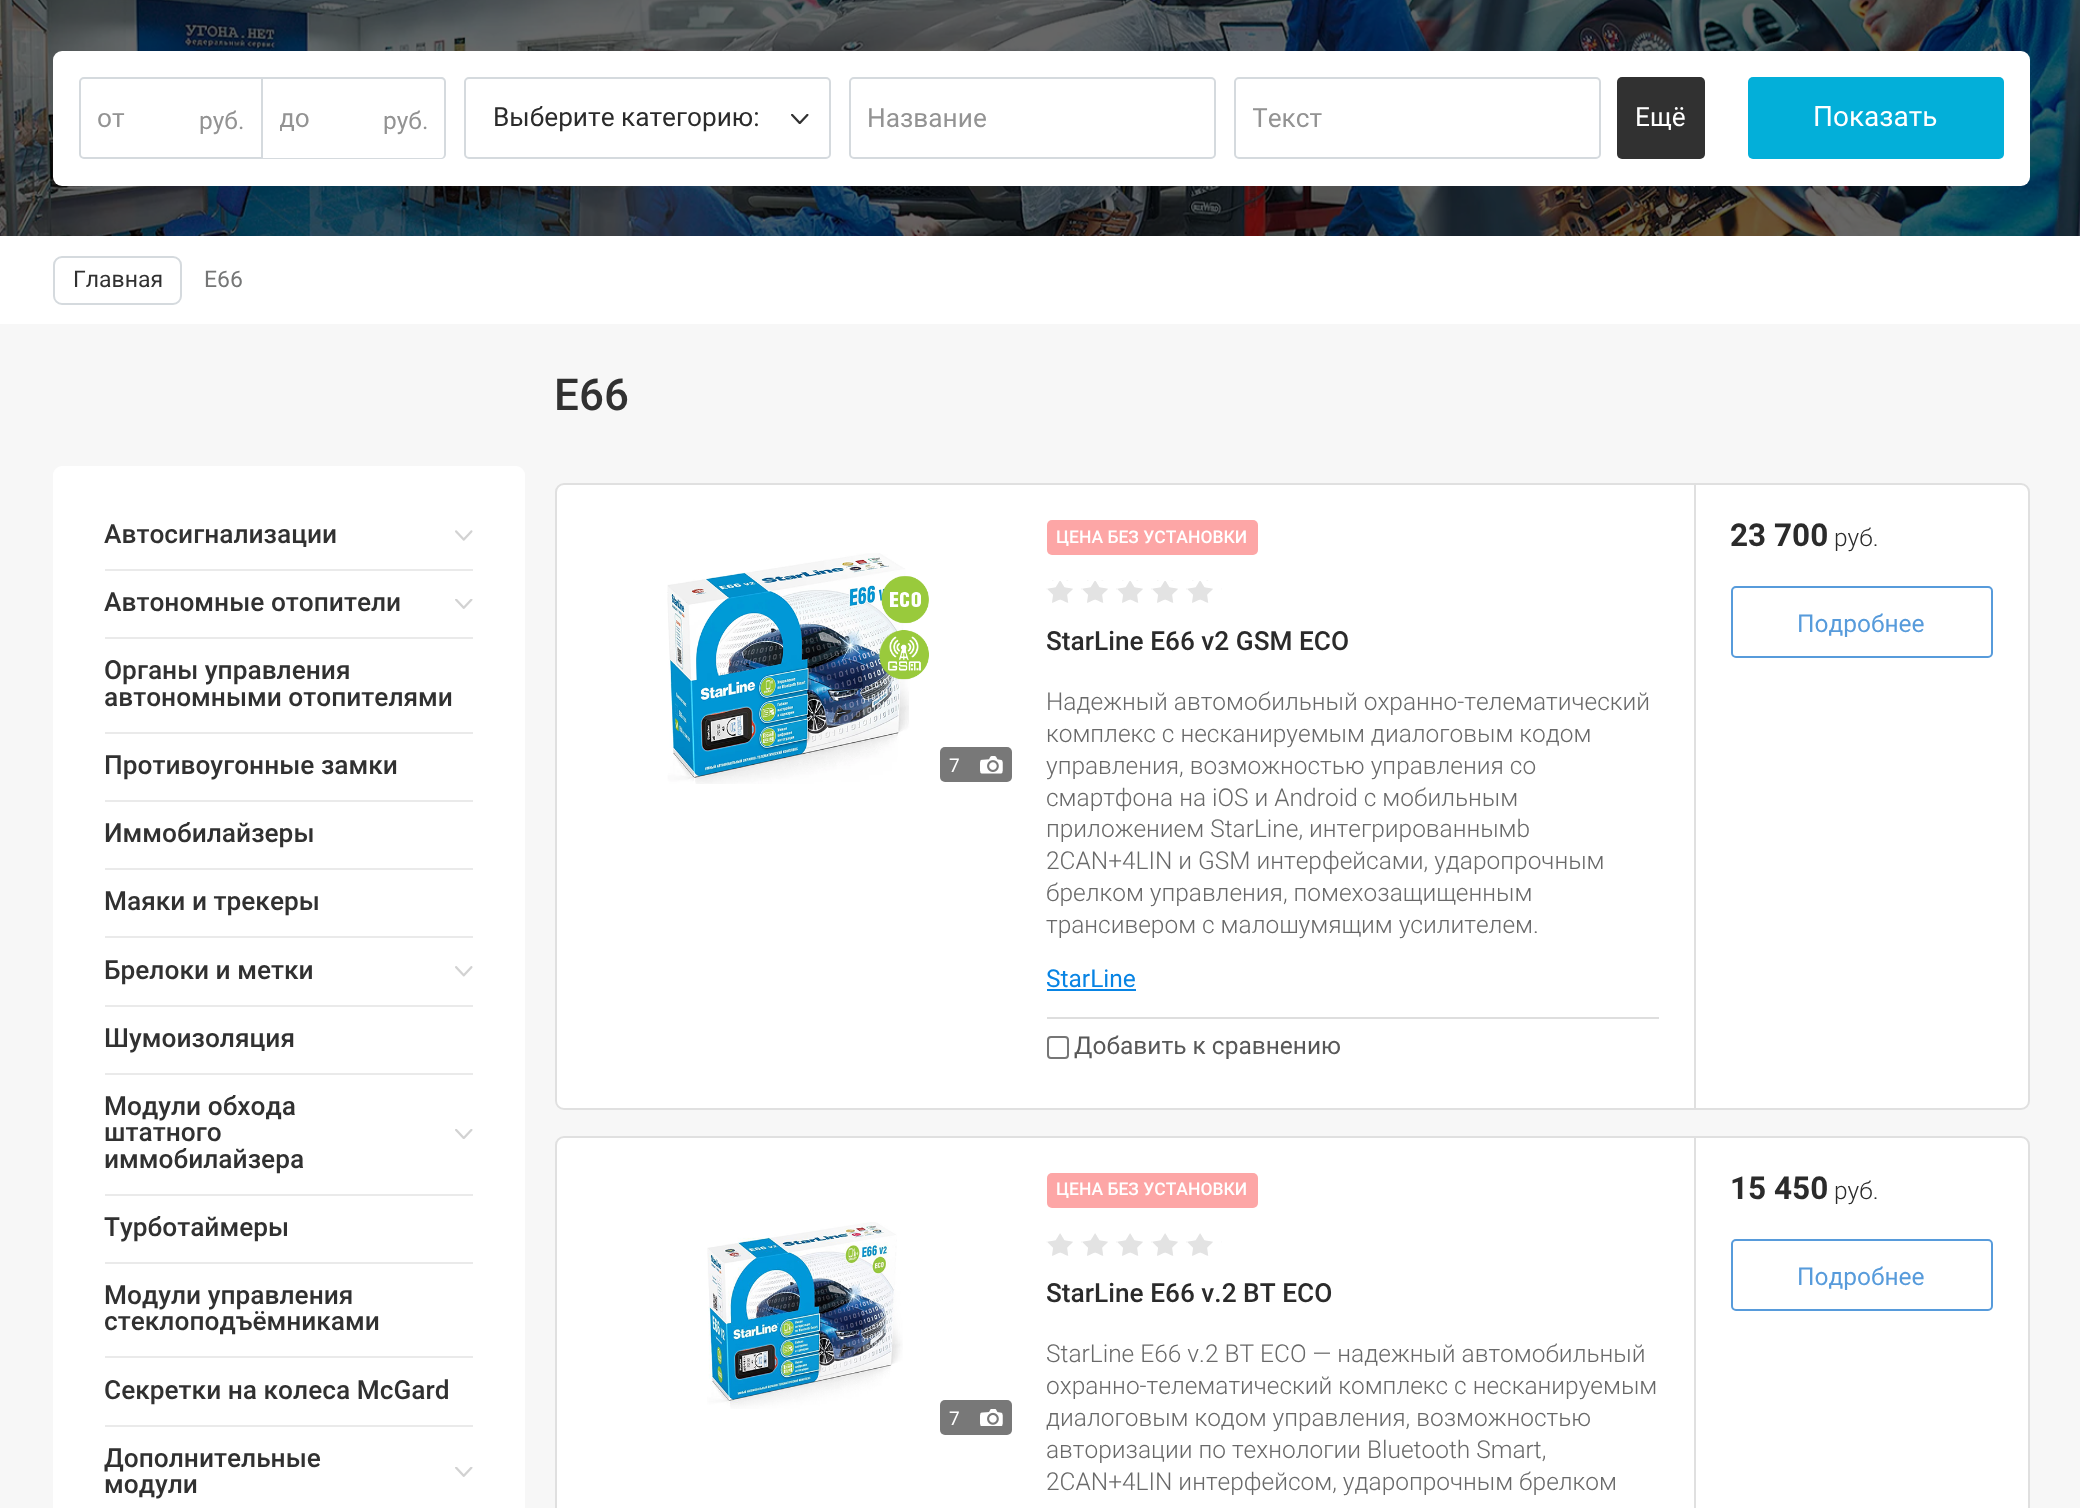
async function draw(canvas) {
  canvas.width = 2080
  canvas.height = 1508
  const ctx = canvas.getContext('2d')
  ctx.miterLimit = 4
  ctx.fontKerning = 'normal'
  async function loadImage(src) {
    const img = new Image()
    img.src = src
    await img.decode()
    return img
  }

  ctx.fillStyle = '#f7f7f7'
  ctx.fillRect(0, 0, 2080, 1508)
  ctx.drawImage(await loadImage('image0.png'), 0, 0, 2080, 236)
  ctx.fillStyle = '#fff'
  ctx.beginPath()
  ctx.roundRect(53, 51, 1977, 135, 9)
  ctx.fill()
  ctx.beginPath()
  ctx.roundRect(80, 78, 182, 80, [4, 0, 0, 4])
  ctx.strokeStyle = '#d5dade'
  ctx.lineWidth = 2
  ctx.stroke()
  ctx.font = '26.25px Roboto'
  ctx.fillStyle = '#939393'
  ctx.fillText('от', 97, 127)
  ctx.font = '24.5px Roboto'
  ctx.fillText('руб.', 199, 129)
  ctx.fillStyle = '#d5dade'
  ctx.beginPath()
  ctx.moveTo(262, 77)
  ctx.lineTo(441, 77)
  ctx.bezierCurveTo(444, 77, 446, 79, 446, 82)
  ctx.lineTo(446, 154)
  ctx.bezierCurveTo(446, 157, 444, 159, 441, 159)
  ctx.lineTo(262, 159)
  ctx.closePath()
  ctx.moveTo(262, 79)
  ctx.lineTo(441, 79)
  ctx.bezierCurveTo(443, 79, 444, 80, 444, 82)
  ctx.lineTo(444, 154)
  ctx.bezierCurveTo(444, 156, 443, 158, 441, 158)
  ctx.lineTo(262, 158)
  ctx.closePath()
  ctx.fill('evenodd')
  ctx.save()
  ctx.beginPath()
  ctx.rect(280, 103, 102, 32)
  ctx.clip()
  ctx.font = '26.25px Roboto'
  ctx.fillStyle = '#939393'
  ctx.fillText('до', 279, 127)
  ctx.restore()
  ctx.fillStyle = '#939393'
  ctx.fillText('руб.', 383, 129)
  ctx.beginPath()
  ctx.roundRect(465, 78, 365, 80, 4)
  ctx.stroke()
  ctx.font = '26.25px Roboto'
  ctx.fillStyle = '#2b2b2b'
  ctx.fillText('Выберите категорию:', 493, 126)
  ctx.drawImage(await loadImage('image1.png'), 791, 114, 18, 10)
  ctx.beginPath()
  ctx.roundRect(850, 78, 365, 80, 4)
  ctx.stroke()
  ctx.fillStyle = '#939393'
  ctx.fillText('Название', 867, 127)
  ctx.beginPath()
  ctx.roundRect(1235, 78, 365, 80, 4)
  ctx.stroke()
  ctx.save()
  ctx.beginPath()
  ctx.rect(1253, 103, 329, 32)
  ctx.clip()
  ctx.fillText('Текст', 1252, 127)
  ctx.restore()
  ctx.fillStyle = '#313131'
  ctx.beginPath()
  ctx.roundRect(1617, 77, 88, 82, 5)
  ctx.fill()
  ctx.fillStyle = '#fff'
  ctx.fillText('Ещё', 1635, 126)
  ctx.fillStyle = '#03afd9'
  ctx.beginPath()
  ctx.roundRect(1748, 77, 256, 82, 5)
  ctx.fill()
  ctx.font = '28px Roboto'
  ctx.fillStyle = '#fff'
  ctx.fillText('Показать', 1813, 126)
  ctx.fillRect(0, 236, 2080, 88)
  ctx.beginPath()
  ctx.roundRect(54, 257, 127, 47, 8)
  ctx.stroke()
  ctx.font = '23px Roboto'
  ctx.fillStyle = '#313131'
  ctx.fillText('Главная', 73, 287)
  ctx.fillStyle = '#757676'
  ctx.fillText('E66', 204, 287)
  ctx.font = '500 44px Roboto'
  ctx.fillStyle = '#313131'
  ctx.fillText('E66', 554, 410)
  ctx.fillStyle = '#fff'
  ctx.beginPath()
  ctx.roundRect(53, 466, 472, 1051, 9)
  ctx.fill()
  ctx.font = '500 26.25px Roboto'
  ctx.fillStyle = '#313131'
  ctx.fillText('Автосигнализации', 104, 543)
  ctx.drawImage(await loadImage('image2.png'), 455, 530, 18, 11)
  ctx.fillStyle = '#eaeaea'
  ctx.fillRect(105, 569, 368, 2)
  ctx.fillStyle = '#313131'
  ctx.fillText('Автономные отопители', 104, 611)
  ctx.drawImage(await loadImage('image3.png'), 455, 599, 18, 10)
  ctx.fillStyle = '#eaeaea'
  ctx.fillRect(105, 637, 368, 2)
  ctx.fillStyle = '#313131'
  ctx.fillText('Органы управления', 104, 679)
  ctx.fillText('автономными отопителями', 104, 706)
  ctx.fillStyle = '#eaeaea'
  ctx.fillRect(105, 732, 368, 2)
  ctx.fillStyle = '#313131'
  ctx.fillText('Противоугонные замки', 104, 774)
  ctx.fillStyle = '#eaeaea'
  ctx.fillRect(105, 800, 368, 2)
  ctx.fillStyle = '#313131'
  ctx.fillText('Иммобилайзеры', 104, 842)
  ctx.fillStyle = '#eaeaea'
  ctx.fillRect(105, 868, 368, 2)
  ctx.fillStyle = '#313131'
  ctx.fillText('Маяки и трекеры', 104, 910)
  ctx.fillStyle = '#eaeaea'
  ctx.fillRect(105, 936, 368, 2)
  ctx.fillStyle = '#313131'
  ctx.fillText('Брелоки и метки', 104, 979)
  ctx.drawImage(await loadImage('image4.png'), 455, 966, 18, 11)
  ctx.fillStyle = '#eaeaea'
  ctx.fillRect(105, 1005, 368, 2)
  ctx.fillStyle = '#313131'
  ctx.fillText('Шумоизоляция', 104, 1047)
  ctx.fillStyle = '#eaeaea'
  ctx.fillRect(105, 1073, 368, 2)
  ctx.fillStyle = '#313131'
  ctx.fillText('Модули обхода', 104, 1115)
  ctx.fillText('штатного', 104, 1141)
  ctx.drawImage(await loadImage('image5.png'), 455, 1129, 18, 10)
  ctx.fillText('иммобилайзера', 104, 1168)
  ctx.fillStyle = '#eaeaea'
  ctx.fillRect(105, 1194, 368, 2)
  ctx.fillStyle = '#313131'
  ctx.fillText('Турботаймеры', 104, 1236)
  ctx.fillStyle = '#eaeaea'
  ctx.fillRect(105, 1262, 368, 2)
  ctx.fillStyle = '#313131'
  ctx.fillText('Модули управления', 104, 1304)
  ctx.fillText('стеклоподъёмниками', 104, 1330)
  ctx.fillStyle = '#eaeaea'
  ctx.fillRect(105, 1356, 368, 2)
  ctx.fillStyle = '#313131'
  ctx.fillText('Секретки на колеса McGard', 104, 1399)
  ctx.fillStyle = '#eaeaea'
  ctx.fillRect(105, 1425, 368, 2)
  ctx.fillStyle = '#313131'
  ctx.fillText('Дополнительные', 104, 1467)
  ctx.drawImage(await loadImage('image3.png'), 455, 1467, 18, 10)
  ctx.fillText('модули', 104, 1493)
  ctx.fillStyle = '#fff'
  ctx.beginPath()
  ctx.roundRect(556, 484, 1473, 625, 8)
  ctx.fill()
  ctx.strokeStyle = '#e0e0e0'
  ctx.stroke()
  ctx.drawImage(await loadImage('image6.png'), 667, 553, 262, 231)
  ctx.fillStyle = '#787878'
  ctx.beginPath()
  ctx.roundRect(940, 747, 72, 35, 5)
  ctx.fill()
  ctx.font = '19px Roboto'
  ctx.fillStyle = '#fff'
  ctx.fillText('7', 949, 772)
  ctx.drawImage(await loadImage('image7.png'), 980, 756, 23, 18)
  ctx.fillStyle = '#fda6a6'
  ctx.beginPath()
  ctx.roundRect(1047, 520, 211, 35, 5)
  ctx.fill()
  ctx.font = '500 17.5px Roboto'
  ctx.fillStyle = '#fff'
  ctx.fillText('ЦЕНА БЕЗ УСТАНОВКИ', 1056, 543)
  ctx.drawImage(await loadImage('image8.png'), 1046, 580, 176, 23)
  ctx.font = '500 26.25px Roboto'
  ctx.fillStyle = '#2b2b2b'
  ctx.fillText('StarLine E66 v2 GSM ECO', 1046, 650)
  ctx.font = '300 24.5px Roboto'
  ctx.fillStyle = '#696969'
  ctx.fillText('Надежный автомобильный охранно-телематический', 1046, 710)
  ctx.fillText('комплекс с несканируемым диалоговым кодом', 1046, 742)
  ctx.fillText('управления, возможностью управления со', 1046, 774)
  ctx.fillText('смартфона на iOS и Android с мобильным', 1046, 806)
  ctx.fillText('приложением StarLine, интегрированнымb', 1046, 837)
  ctx.fillText('2CAN+4LIN и GSM интерфейсами, ударопрочным', 1046, 869)
  ctx.fillText('брелком управления, помехозащищенным', 1046, 901)
  ctx.fillText('трансивером с малошумящим усилителем.', 1046, 933)
  ctx.font = '24.5px Roboto'
  ctx.fillStyle = '#0884e4'
  ctx.fillText('StarLine', 1046, 987)
  ctx.fillRect(1047, 989, 89, 2)
  ctx.fillStyle = '#dedede'
  ctx.fillRect(1047, 1017, 612, 2)
  ctx.beginPath()
  ctx.roundRect(1048, 1037, 20, 21, 3)
  ctx.strokeStyle = '#767676'
  ctx.stroke()
  ctx.fillStyle = '#585858'
  ctx.fillText('Добавить к сравнению', 1074, 1054)
  ctx.fillStyle = '#e0e0e0'
  ctx.fillRect(1694, 485, 2, 623)
  ctx.font = 'bold 31.5px Roboto'
  ctx.fillStyle = '#2b2b2b'
  ctx.fillText('23 700', 1730, 546)
  ctx.font = '300 24.5px Roboto'
  ctx.fillText('руб.', 1834, 546)
  ctx.beginPath()
  ctx.roundRect(1732, 587, 260, 70, 4)
  ctx.strokeStyle = '#579bdb'
  ctx.stroke()
  ctx.font = '24.5px Roboto'
  ctx.fillStyle = '#579bdb'
  ctx.fillText('Подробнее', 1797, 632)
  ctx.fillStyle = '#fff'
  ctx.beginPath()
  ctx.roundRect(556, 1137, 1473, 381, 8)
  ctx.fill()
  ctx.strokeStyle = '#e0e0e0'
  ctx.stroke()
  ctx.drawImage(await loadImage('image9.png'), 707, 1222, 196, 187)
  ctx.fillStyle = '#787878'
  ctx.beginPath()
  ctx.roundRect(940, 1400, 72, 35, 5)
  ctx.fill()
  ctx.font = '19px Roboto'
  ctx.fillStyle = '#fff'
  ctx.fillText('7', 949, 1425)
  ctx.drawImage(await loadImage('image10.png'), 980, 1409, 23, 17)
  ctx.fillStyle = '#fda6a6'
  ctx.beginPath()
  ctx.roundRect(1047, 1173, 211, 35, 5)
  ctx.fill()
  ctx.font = '500 17.5px Roboto'
  ctx.fillStyle = '#fff'
  ctx.fillText('ЦЕНА БЕЗ УСТАНОВКИ', 1056, 1195)
  ctx.drawImage(await loadImage('image11.png'), 1046, 1233, 176, 23)
  ctx.font = '500 26.25px Roboto'
  ctx.fillStyle = '#2b2b2b'
  ctx.fillText('StarLine E66 v.2 BT ECO', 1046, 1302)
  ctx.font = '300 24.5px Roboto'
  ctx.fillStyle = '#696969'
  ctx.fillText('StarLine E66 v.2 BT ECO — надежный автомобильный', 1046, 1362)
  ctx.fillText('охранно-телематический комплекс с несканируемым', 1046, 1394)
  ctx.fillText('диалоговым кодом управления, возможностью', 1046, 1426)
  ctx.fillText('авторизации по технологии Bluetooth Smart,', 1046, 1458)
  ctx.fillText('2CAN+4LIN интерфейсом, ударопрочным брелком', 1046, 1490)
  ctx.fillStyle = '#e0e0e0'
  ctx.fillRect(1694, 1138, 2, 370)
  ctx.font = 'bold 31.5px Roboto'
  ctx.fillStyle = '#2b2b2b'
  ctx.fillText('15 450', 1730, 1199)
  ctx.font = '300 24.5px Roboto'
  ctx.fillText('руб.', 1834, 1199)
  ctx.beginPath()
  ctx.roundRect(1732, 1240, 260, 70, 4)
  ctx.strokeStyle = '#579bdb'
  ctx.stroke()
  ctx.font = '24.5px Roboto'
  ctx.fillStyle = '#579bdb'
  ctx.fillText('Подробнее', 1797, 1285)
}

draw(document.querySelector('canvas'))
